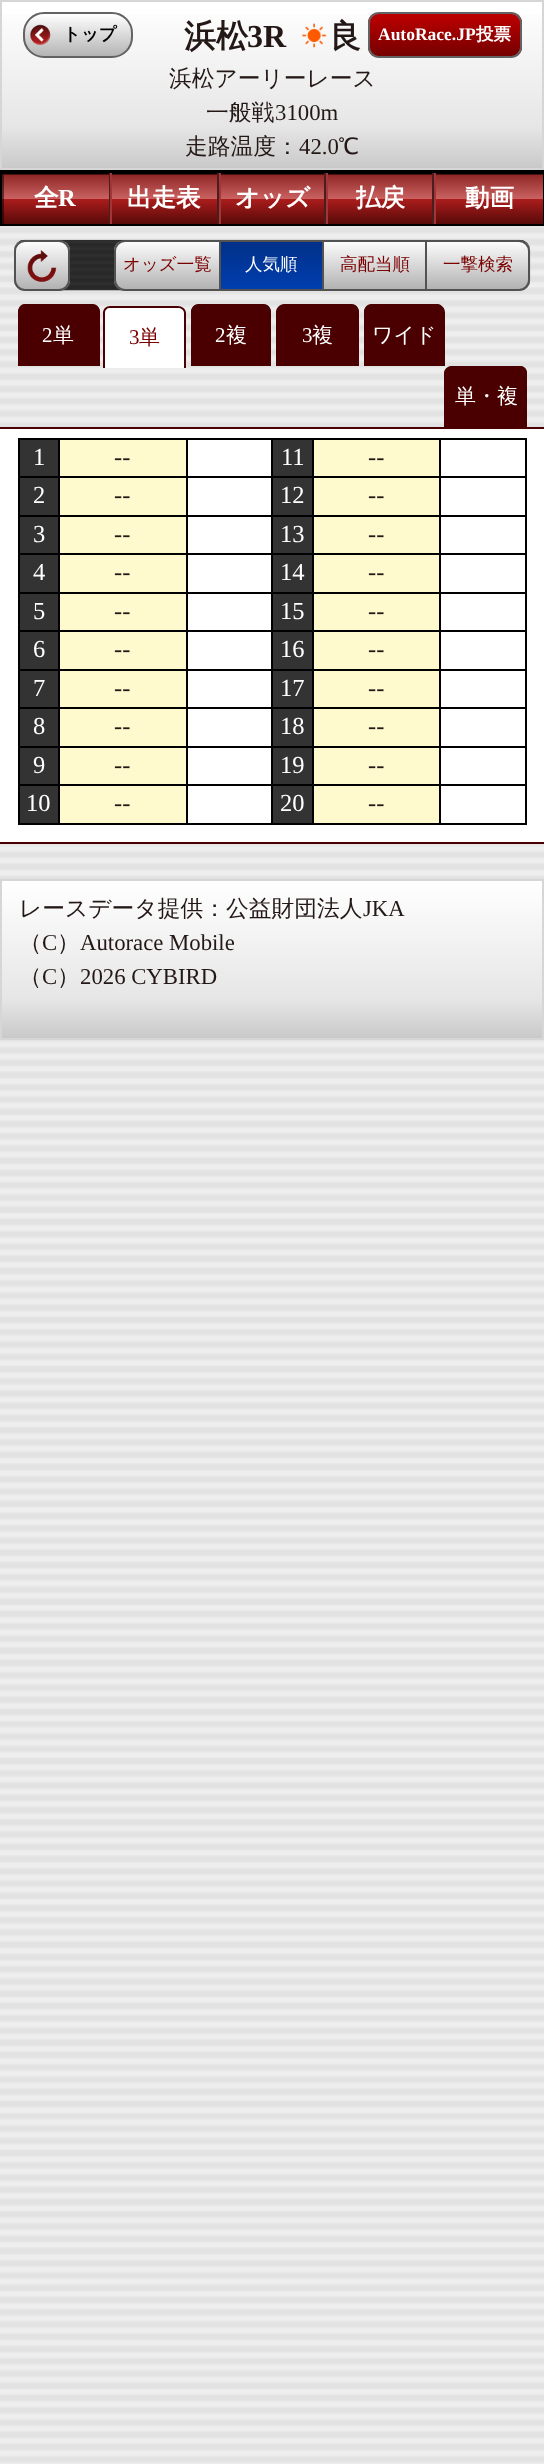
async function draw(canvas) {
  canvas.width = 544
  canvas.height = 2464
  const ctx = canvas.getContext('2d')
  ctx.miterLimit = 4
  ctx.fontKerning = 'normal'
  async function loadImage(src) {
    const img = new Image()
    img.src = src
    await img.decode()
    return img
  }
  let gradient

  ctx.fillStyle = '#fff'
  ctx.fillRect(0, 0, 544, 2464)
  ctx.drawImage(await loadImage('image0.png'), 0, 226, 544, 2238)
  gradient = ctx.createLinearGradient(272, 1.7, 272, 168)
  gradient.addColorStop(0, '#fff')
  gradient.addColorStop(0.75, '#e6e6e6')
  gradient.addColorStop(1, '#c9c9c9')
  ctx.fillStyle = gradient
  ctx.fillRect(2, 14, 540, 154)
  ctx.strokeStyle = '#d6d6d6'
  ctx.lineWidth = 2
  ctx.strokeRect(1, 1, 542, 168)
  ctx.save()
  ctx.beginPath()
  ctx.roundRect(23, 12, 110, 46, 21)
  ctx.clip()
  gradient = ctx.createLinearGradient(78, 14, 78, 56)
  gradient.addColorStop(0, '#fff')
  gradient.addColorStop(1, '#b4b4b4')
  ctx.fillStyle = gradient
  ctx.fillRect(23, 14, 110, 42)
  ctx.restore()
  ctx.beginPath()
  ctx.roundRect(24, 13, 108, 44, 20)
  ctx.strokeStyle = '#646363'
  ctx.stroke()
  ctx.drawImage(await loadImage('image1.png'), 30, 24, 21, 22)
  ctx.font = 'bold 17.5px WenQuanYi Zen Hei'
  ctx.fillStyle = '#000'
  ctx.fillText('トップ', 63, 40)
  ctx.font = 'bold 32px WenQuanYi Zen Hei'
  ctx.fillStyle = '#231815'
  ctx.fillText('浜松', 184, 47)
  ctx.font = 'bold 32px Liberation Serif'
  ctx.fillText('3R', 247, 47)
  ctx.drawImage(await loadImage('image2.png'), 301, 23, 26, 25)
  ctx.font = 'bold 32px WenQuanYi Zen Hei'
  ctx.fillText('良', 329, 47)
  ctx.save()
  ctx.beginPath()
  ctx.roundRect(368, 12, 154, 46, 11)
  ctx.clip()
  gradient = ctx.createLinearGradient(445, 14, 445, 56)
  gradient.addColorStop(0, '#bd0000')
  gradient.addColorStop(1, '#750000')
  ctx.fillStyle = gradient
  ctx.fillRect(368, 14, 154, 42)
  ctx.restore()
  ctx.beginPath()
  ctx.roundRect(369, 13, 152, 44, 10)
  ctx.stroke()
  ctx.font = 'bold 17.5px Liberation Serif'
  ctx.fillStyle = '#fff'
  ctx.fillText('AutoRace.JP', 378, 40)
  ctx.font = 'bold 17.5px WenQuanYi Zen Hei'
  ctx.fillText('投票', 476, 40)
  ctx.font = '500 22.75px WenQuanYi Zen Hei'
  ctx.fillStyle = '#231815'
  ctx.fillText('浜松アーリーレース', 169, 86)
  ctx.fillText('一般戦', 206, 120)
  ctx.font = '22.75px Liberation Serif'
  ctx.fillText('3100m', 275, 120)
  ctx.font = '500 22.75px WenQuanYi Zen Hei'
  ctx.fillText('走路温度：', 185, 154)
  ctx.font = '22.75px Liberation Serif'
  ctx.fillText('42.0', 299, 154)
  ctx.font = '500 22.75px WenQuanYi Zen Hei'
  ctx.fillText('℃', 338, 154)
  gradient = ctx.createLinearGradient(272, 173, 272, 224)
  gradient.addColorStop(0, '#8b2323')
  gradient.addColorStop(0.5, '#c96160')
  gradient.addColorStop(0.51, '#ab1d1c')
  gradient.addColorStop(1, '#580a09')
  ctx.fillStyle = gradient
  ctx.fillRect(2, 174, 541, 50)
  ctx.save()
  ctx.beginPath()
  ctx.rect(2, 173, 541, 51)
  ctx.clip()
  ctx.fillStyle = '#00000080'
  ctx.beginPath()
  ctx.moveTo(-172, 0)
  ctx.lineTo(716, 0)
  ctx.lineTo(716, 397)
  ctx.lineTo(-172, 397)
  ctx.closePath()
  ctx.moveTo(4, 175)
  ctx.lineTo(544, 175)
  ctx.lineTo(544, 226)
  ctx.lineTo(4, 226)
  ctx.closePath()
  ctx.fill('evenodd')
  ctx.restore()
  ctx.fillStyle = '#000'
  ctx.fillRect(0, 170, 544, 4)
  ctx.fillRect(543, 170, 1, 56)
  ctx.fillRect(0, 224, 544, 2)
  ctx.fillRect(0, 170, 2, 56)
  ctx.fillStyle = '#4a1e1e'
  ctx.fillRect(109, 173, 1, 51)
  ctx.font = 'bold 24.5px WenQuanYi Zen Hei'
  ctx.fillStyle = '#fff'
  ctx.fillText('全', 34, 206)
  ctx.font = 'bold 24.5px Liberation Serif'
  ctx.fillText('R', 58, 206)
  ctx.fillStyle = '#4a1e1e'
  ctx.fillRect(217, 173, 2, 51)
  ctx.fillStyle = '#a23535'
  ctx.fillRect(110, 173, 2, 51)
  ctx.font = 'bold 24.5px WenQuanYi Zen Hei'
  ctx.fillStyle = '#fff'
  ctx.fillText('出走表', 127, 206)
  ctx.fillStyle = '#4a1e1e'
  ctx.fillRect(324, 173, 2, 51)
  ctx.fillStyle = '#a23535'
  ctx.fillRect(219, 173, 2, 51)
  ctx.fillStyle = '#fff'
  ctx.fillText('オッズ', 235, 206)
  ctx.fillStyle = '#4a1e1e'
  ctx.fillRect(432, 173, 2, 51)
  ctx.fillStyle = '#a23535'
  ctx.fillRect(326, 173, 2, 51)
  ctx.fillStyle = '#fff'
  ctx.fillText('払戻', 356, 206)
  ctx.fillStyle = '#a23535'
  ctx.fillRect(434, 173, 2, 51)
  ctx.fillStyle = '#fff'
  ctx.fillText('動画', 465, 206)
  ctx.drawImage(await loadImage('image3.png'), 14, 239, 517, 52)
  ctx.save()
  ctx.beginPath()
  ctx.roundRect(14, 240, 56, 51, 11)
  ctx.clip()
  gradient = ctx.createLinearGradient(42, 242, 42, 289)
  gradient.addColorStop(0, '#fcfcfc')
  gradient.addColorStop(1, '#b2b2b2')
  ctx.fillStyle = gradient
  ctx.fillRect(14, 242, 56, 47)
  ctx.restore()
  ctx.beginPath()
  ctx.roundRect(15, 241, 54, 49, 10)
  ctx.strokeStyle = '#525252'
  ctx.stroke()
  ctx.drawImage(await loadImage('image4.png'), 27, 250, 30, 32)
  ctx.save()
  ctx.beginPath()
  ctx.roundRect(114, 240, 416, 51, 11)
  ctx.clip()
  gradient = ctx.createLinearGradient(322, 242, 322, 289)
  gradient.addColorStop(0, '#fcfcfc')
  gradient.addColorStop(1, '#b2b2b2')
  ctx.fillStyle = gradient
  ctx.fillRect(114, 242, 416, 47)
  ctx.restore()
  ctx.beginPath()
  ctx.roundRect(115, 241, 414, 49, 10)
  ctx.stroke()
  ctx.font = '500 17.5px WenQuanYi Zen Hei'
  ctx.fillStyle = '#7b0101'
  ctx.fillText('オッズ一覧', 123, 270)
  gradient = ctx.createLinearGradient(271, 242, 271, 289)
  gradient.addColorStop(0, '#013088')
  gradient.addColorStop(1, '#003eaf')
  ctx.fillStyle = gradient
  ctx.fillRect(221, 242, 101, 47)
  ctx.fillStyle = '#525252'
  ctx.fillRect(219, 242, 2, 47)
  ctx.fillStyle = '#fff'
  ctx.fillText('人気順', 245, 270)
  ctx.fillStyle = '#525252'
  ctx.fillRect(322, 242, 2, 47)
  ctx.fillStyle = '#7b0101'
  ctx.fillText('高配当順', 340, 270)
  ctx.fillStyle = '#525252'
  ctx.fillRect(425, 242, 2, 47)
  ctx.fillStyle = '#7b0101'
  ctx.fillText('一撃検索', 443, 270)
  ctx.fillStyle = '#4a0000'
  ctx.fillRect(0, 427, 544, 2)
  ctx.beginPath()
  ctx.roundRect(18, 305, 82, 61, [7, 7, 0, 0])
  ctx.fill()
  ctx.beginPath()
  ctx.moveTo(24, 304)
  ctx.lineTo(93, 304)
  ctx.bezierCurveTo(97, 304, 100, 308, 100, 312)
  ctx.lineTo(100, 366)
  ctx.lineTo(18, 366)
  ctx.lineTo(18, 312)
  ctx.bezierCurveTo(18, 308, 21, 304, 24, 304)
  ctx.closePath()
  ctx.moveTo(24, 306)
  ctx.lineTo(93, 306)
  ctx.bezierCurveTo(96, 306, 98, 309, 98, 312)
  ctx.lineTo(98, 366)
  ctx.lineTo(19, 366)
  ctx.lineTo(19, 312)
  ctx.bezierCurveTo(19, 309, 22, 306, 24, 306)
  ctx.closePath()
  ctx.fill('evenodd')
  ctx.font = '21px Liberation Serif'
  ctx.fillStyle = '#fff'
  ctx.fillText('2', 42, 342)
  ctx.font = '500 21px WenQuanYi Zen Hei'
  ctx.fillText('単', 53, 342)
  ctx.beginPath()
  ctx.roundRect(103, 306, 83, 62, [7, 7, 0, 0])
  ctx.fill()
  ctx.fillStyle = '#4a0000'
  ctx.beginPath()
  ctx.moveTo(110, 306)
  ctx.lineTo(178, 306)
  ctx.bezierCurveTo(182, 306, 186, 309, 186, 313)
  ctx.lineTo(186, 368)
  ctx.lineTo(103, 368)
  ctx.lineTo(103, 313)
  ctx.bezierCurveTo(103, 309, 106, 306, 110, 306)
  ctx.closePath()
  ctx.moveTo(110, 308)
  ctx.lineTo(178, 308)
  ctx.bezierCurveTo(181, 308, 184, 310, 184, 313)
  ctx.lineTo(184, 368)
  ctx.lineTo(105, 368)
  ctx.lineTo(105, 313)
  ctx.bezierCurveTo(105, 310, 107, 308, 110, 308)
  ctx.closePath()
  ctx.fill('evenodd')
  ctx.font = '21px Liberation Serif'
  ctx.fillStyle = '#7b0101'
  ctx.fillText('3', 129, 344)
  ctx.font = '500 21px WenQuanYi Zen Hei'
  ctx.fillText('単', 139, 344)
  ctx.fillStyle = '#4a0000'
  ctx.beginPath()
  ctx.roundRect(191, 305, 80, 61, [7, 7, 0, 0])
  ctx.fill()
  ctx.beginPath()
  ctx.moveTo(198, 304)
  ctx.lineTo(264, 304)
  ctx.bezierCurveTo(268, 304, 271, 308, 271, 312)
  ctx.lineTo(271, 366)
  ctx.lineTo(191, 366)
  ctx.lineTo(191, 312)
  ctx.bezierCurveTo(191, 308, 194, 304, 198, 304)
  ctx.closePath()
  ctx.moveTo(198, 306)
  ctx.lineTo(264, 306)
  ctx.bezierCurveTo(267, 306, 270, 309, 270, 312)
  ctx.lineTo(270, 366)
  ctx.lineTo(192, 366)
  ctx.lineTo(192, 312)
  ctx.bezierCurveTo(192, 309, 195, 306, 198, 306)
  ctx.closePath()
  ctx.fill('evenodd')
  ctx.font = '21px Liberation Serif'
  ctx.fillStyle = '#fff'
  ctx.fillText('2', 215, 342)
  ctx.font = '500 21px WenQuanYi Zen Hei'
  ctx.fillText('複', 226, 342)
  ctx.fillStyle = '#4a0000'
  ctx.beginPath()
  ctx.roundRect(277, 305, 82, 61, [7, 7, 0, 0])
  ctx.fill()
  ctx.beginPath()
  ctx.moveTo(284, 304)
  ctx.lineTo(352, 304)
  ctx.bezierCurveTo(356, 304, 359, 308, 359, 312)
  ctx.lineTo(359, 366)
  ctx.lineTo(276, 366)
  ctx.lineTo(276, 312)
  ctx.bezierCurveTo(276, 308, 280, 304, 284, 304)
  ctx.closePath()
  ctx.moveTo(284, 306)
  ctx.lineTo(352, 306)
  ctx.bezierCurveTo(355, 306, 357, 309, 357, 312)
  ctx.lineTo(357, 366)
  ctx.lineTo(278, 366)
  ctx.lineTo(278, 312)
  ctx.bezierCurveTo(278, 309, 281, 306, 284, 306)
  ctx.closePath()
  ctx.fill('evenodd')
  ctx.font = '21px Liberation Serif'
  ctx.fillStyle = '#fff'
  ctx.fillText('3', 302, 342)
  ctx.font = '500 21px WenQuanYi Zen Hei'
  ctx.fillText('複', 312, 342)
  ctx.fillStyle = '#4a0000'
  ctx.beginPath()
  ctx.roundRect(364, 305, 81, 61, [7, 7, 0, 0])
  ctx.fill()
  ctx.beginPath()
  ctx.moveTo(371, 304)
  ctx.lineTo(438, 304)
  ctx.bezierCurveTo(441, 304, 444, 308, 444, 312)
  ctx.lineTo(444, 366)
  ctx.lineTo(364, 366)
  ctx.lineTo(364, 312)
  ctx.bezierCurveTo(364, 308, 367, 304, 371, 304)
  ctx.closePath()
  ctx.moveTo(371, 306)
  ctx.lineTo(438, 306)
  ctx.bezierCurveTo(440, 306, 443, 309, 443, 312)
  ctx.lineTo(443, 366)
  ctx.lineTo(366, 366)
  ctx.lineTo(366, 312)
  ctx.bezierCurveTo(366, 309, 368, 306, 371, 306)
  ctx.closePath()
  ctx.fill('evenodd')
  ctx.fillStyle = '#fff'
  ctx.fillText('ワイド', 372, 342)
  ctx.fillStyle = '#4a0000'
  ctx.beginPath()
  ctx.roundRect(445, 366, 82, 61, [7, 7, 0, 0])
  ctx.fill()
  ctx.beginPath()
  ctx.moveTo(452, 366)
  ctx.lineTo(520, 366)
  ctx.bezierCurveTo(524, 366, 527, 369, 527, 373)
  ctx.lineTo(527, 427)
  ctx.lineTo(444, 427)
  ctx.lineTo(444, 373)
  ctx.bezierCurveTo(444, 369, 448, 366, 452, 366)
  ctx.closePath()
  ctx.moveTo(452, 368)
  ctx.lineTo(520, 368)
  ctx.bezierCurveTo(523, 368, 525, 370, 525, 373)
  ctx.lineTo(525, 427)
  ctx.lineTo(446, 427)
  ctx.lineTo(446, 373)
  ctx.bezierCurveTo(446, 370, 449, 368, 452, 368)
  ctx.closePath()
  ctx.fill('evenodd')
  ctx.fillStyle = '#fff'
  ctx.fillText('単・複', 455, 403)
  ctx.fillRect(0, 429, 544, 413)
  ctx.fillStyle = '#4a0000'
  ctx.fillRect(0, 842, 544, 2)
  ctx.fillStyle = '#333'
  ctx.fillRect(20, 440, 38, 36)
  ctx.fillStyle = '#000'
  ctx.fillRect(439, 438, 88, 2)
  ctx.fillRect(439, 476, 88, 2)
  ctx.fillRect(439, 515, 88, 2)
  ctx.fillRect(439, 553, 88, 2)
  ctx.fillRect(439, 592, 88, 2)
  ctx.fillRect(439, 630, 88, 2)
  ctx.fillRect(439, 669, 88, 2)
  ctx.fillRect(439, 707, 88, 2)
  ctx.fillRect(439, 746, 88, 2)
  ctx.fillRect(439, 784, 88, 2)
  ctx.fillRect(525, 784, 2, 40)
  ctx.fillRect(439, 823, 88, 2)
  ctx.fillRect(439, 784, 2, 40)
  ctx.fillRect(312, 784, 129, 2)
  ctx.fillRect(439, 746, 2, 40)
  ctx.fillRect(312, 746, 129, 2)
  ctx.fillRect(439, 707, 2, 40)
  ctx.fillRect(312, 707, 129, 2)
  ctx.fillRect(439, 669, 2, 40)
  ctx.fillRect(312, 669, 129, 2)
  ctx.fillRect(439, 630, 2, 40)
  ctx.fillRect(312, 630, 129, 2)
  ctx.fillRect(439, 592, 2, 40)
  ctx.fillRect(312, 592, 129, 2)
  ctx.fillRect(439, 553, 2, 40)
  ctx.fillRect(312, 553, 129, 2)
  ctx.fillRect(439, 515, 2, 40)
  ctx.fillRect(312, 515, 129, 2)
  ctx.fillRect(439, 476, 2, 40)
  ctx.fillRect(312, 476, 129, 2)
  ctx.fillRect(439, 438, 2, 40)
  ctx.fillRect(312, 438, 129, 2)
  ctx.fillRect(312, 823, 129, 2)
  ctx.fillRect(312, 784, 2, 40)
  ctx.fillRect(271, 784, 42, 2)
  ctx.fillRect(312, 746, 2, 40)
  ctx.fillRect(271, 746, 42, 2)
  ctx.fillRect(312, 707, 2, 40)
  ctx.fillRect(271, 707, 42, 2)
  ctx.fillRect(312, 669, 2, 40)
  ctx.fillRect(271, 669, 42, 2)
  ctx.fillRect(312, 630, 2, 40)
  ctx.fillRect(271, 630, 42, 2)
  ctx.fillRect(312, 592, 2, 40)
  ctx.fillRect(271, 592, 42, 2)
  ctx.fillRect(312, 553, 2, 40)
  ctx.fillRect(271, 553, 42, 2)
  ctx.fillRect(312, 515, 2, 40)
  ctx.fillRect(271, 515, 42, 2)
  ctx.fillRect(312, 476, 2, 40)
  ctx.fillRect(271, 476, 42, 2)
  ctx.fillRect(312, 438, 2, 40)
  ctx.fillRect(271, 438, 42, 2)
  ctx.fillRect(271, 823, 42, 2)
  ctx.fillRect(271, 784, 2, 40)
  ctx.fillRect(186, 784, 87, 2)
  ctx.fillRect(271, 746, 2, 40)
  ctx.fillRect(186, 746, 87, 2)
  ctx.fillRect(271, 707, 2, 40)
  ctx.fillRect(186, 707, 87, 2)
  ctx.fillRect(271, 669, 2, 40)
  ctx.fillRect(186, 669, 87, 2)
  ctx.fillRect(271, 630, 2, 40)
  ctx.fillRect(186, 630, 87, 2)
  ctx.fillRect(271, 592, 2, 40)
  ctx.fillRect(186, 592, 87, 2)
  ctx.fillRect(271, 553, 2, 40)
  ctx.fillRect(186, 553, 87, 2)
  ctx.fillRect(271, 515, 2, 40)
  ctx.fillRect(186, 515, 87, 2)
  ctx.fillRect(271, 476, 2, 40)
  ctx.fillRect(186, 476, 87, 2)
  ctx.fillRect(271, 438, 2, 40)
  ctx.fillRect(186, 438, 87, 2)
  ctx.fillRect(186, 823, 87, 2)
  ctx.fillRect(186, 784, 2, 40)
  ctx.fillRect(58, 784, 129, 2)
  ctx.fillRect(186, 746, 2, 40)
  ctx.fillRect(58, 746, 129, 2)
  ctx.fillRect(186, 707, 2, 40)
  ctx.fillRect(58, 707, 129, 2)
  ctx.fillRect(186, 669, 2, 40)
  ctx.fillRect(58, 669, 129, 2)
  ctx.fillRect(186, 630, 2, 40)
  ctx.fillRect(58, 630, 129, 2)
  ctx.fillRect(186, 592, 2, 40)
  ctx.fillRect(58, 592, 129, 2)
  ctx.fillRect(186, 553, 2, 40)
  ctx.fillRect(58, 553, 129, 2)
  ctx.fillRect(186, 515, 2, 40)
  ctx.fillRect(58, 515, 129, 2)
  ctx.fillRect(186, 476, 2, 40)
  ctx.fillRect(58, 476, 129, 2)
  ctx.fillRect(186, 438, 2, 40)
  ctx.fillRect(58, 438, 129, 2)
  ctx.fillRect(58, 823, 129, 2)
  ctx.fillRect(58, 784, 2, 40)
  ctx.fillRect(18, 784, 42, 2)
  ctx.fillRect(58, 746, 2, 40)
  ctx.fillRect(18, 746, 42, 2)
  ctx.fillRect(58, 707, 2, 40)
  ctx.fillRect(18, 707, 42, 2)
  ctx.fillRect(58, 669, 2, 40)
  ctx.fillRect(18, 669, 42, 2)
  ctx.fillRect(58, 630, 2, 40)
  ctx.fillRect(18, 630, 42, 2)
  ctx.fillRect(58, 592, 2, 40)
  ctx.fillRect(18, 592, 42, 2)
  ctx.fillRect(58, 553, 2, 40)
  ctx.fillRect(18, 553, 42, 2)
  ctx.fillRect(58, 515, 2, 40)
  ctx.fillRect(18, 515, 42, 2)
  ctx.fillRect(58, 476, 2, 40)
  ctx.fillRect(18, 476, 42, 2)
  ctx.fillRect(58, 438, 2, 40)
  ctx.fillRect(18, 438, 42, 2)
  ctx.fillRect(18, 823, 42, 2)
  ctx.fillRect(18, 784, 2, 40)
  ctx.fillRect(18, 746, 2, 40)
  ctx.fillRect(18, 707, 2, 40)
  ctx.fillRect(18, 669, 2, 40)
  ctx.fillRect(18, 630, 2, 40)
  ctx.fillRect(18, 592, 2, 40)
  ctx.fillRect(18, 553, 2, 40)
  ctx.fillRect(18, 515, 2, 40)
  ctx.fillRect(18, 476, 2, 40)
  ctx.fillRect(18, 438, 2, 40)
  ctx.font = '24.5px Liberation Serif'
  ctx.fillStyle = '#fff'
  ctx.fillText('1', 33, 465)
  ctx.fillStyle = '#fff9ce'
  ctx.fillRect(60, 440, 126, 36)
  ctx.fillStyle = '#231815'
  ctx.fillText('--', 114, 465)
  ctx.fillStyle = '#333'
  ctx.fillRect(273, 440, 39, 36)
  ctx.fillStyle = '#fff'
  ctx.fillText('11', 281, 465)
  ctx.fillStyle = '#fff9ce'
  ctx.fillRect(314, 440, 125, 36)
  ctx.fillStyle = '#231815'
  ctx.fillText('--', 368, 465)
  ctx.fillStyle = '#000'
  ctx.fillRect(525, 746, 2, 40)
  ctx.fillRect(525, 707, 2, 40)
  ctx.fillRect(525, 669, 2, 40)
  ctx.fillRect(525, 630, 2, 40)
  ctx.fillRect(525, 592, 2, 40)
  ctx.fillRect(525, 553, 2, 40)
  ctx.fillRect(525, 515, 2, 40)
  ctx.fillRect(525, 476, 2, 40)
  ctx.fillRect(525, 438, 2, 40)
  ctx.fillStyle = '#333'
  ctx.fillRect(20, 478, 38, 37)
  ctx.fillStyle = '#fff'
  ctx.fillText('2', 33, 503)
  ctx.fillStyle = '#fff9ce'
  ctx.fillRect(60, 478, 126, 37)
  ctx.fillStyle = '#231815'
  ctx.fillText('--', 114, 503)
  ctx.fillStyle = '#333'
  ctx.fillRect(273, 478, 39, 37)
  ctx.fillStyle = '#fff'
  ctx.fillText('12', 280, 503)
  ctx.fillStyle = '#fff9ce'
  ctx.fillRect(314, 478, 125, 37)
  ctx.fillStyle = '#231815'
  ctx.fillText('--', 368, 503)
  ctx.fillStyle = '#333'
  ctx.fillRect(20, 517, 38, 36)
  ctx.fillStyle = '#fff'
  ctx.fillText('3', 33, 542)
  ctx.fillStyle = '#fff9ce'
  ctx.fillRect(60, 517, 126, 36)
  ctx.fillStyle = '#231815'
  ctx.fillText('--', 114, 542)
  ctx.fillStyle = '#333'
  ctx.fillRect(273, 517, 39, 36)
  ctx.fillStyle = '#fff'
  ctx.fillText('13', 280, 542)
  ctx.fillStyle = '#fff9ce'
  ctx.fillRect(314, 517, 125, 36)
  ctx.fillStyle = '#231815'
  ctx.fillText('--', 368, 542)
  ctx.fillStyle = '#333'
  ctx.fillRect(20, 555, 38, 37)
  ctx.fillStyle = '#fff'
  ctx.fillText('4', 33, 580)
  ctx.fillStyle = '#fff9ce'
  ctx.fillRect(60, 555, 126, 37)
  ctx.fillStyle = '#231815'
  ctx.fillText('--', 114, 580)
  ctx.fillStyle = '#333'
  ctx.fillRect(273, 555, 39, 37)
  ctx.fillStyle = '#fff'
  ctx.fillText('14', 280, 580)
  ctx.fillStyle = '#fff9ce'
  ctx.fillRect(314, 555, 125, 37)
  ctx.fillStyle = '#231815'
  ctx.fillText('--', 368, 580)
  ctx.fillStyle = '#333'
  ctx.fillRect(20, 594, 38, 36)
  ctx.fillStyle = '#fff'
  ctx.fillText('5', 33, 619)
  ctx.fillStyle = '#fff9ce'
  ctx.fillRect(60, 594, 126, 36)
  ctx.fillStyle = '#231815'
  ctx.fillText('--', 114, 619)
  ctx.fillStyle = '#333'
  ctx.fillRect(273, 594, 39, 36)
  ctx.fillStyle = '#fff'
  ctx.fillText('15', 280, 619)
  ctx.fillStyle = '#fff9ce'
  ctx.fillRect(314, 594, 125, 36)
  ctx.fillStyle = '#231815'
  ctx.fillText('--', 368, 619)
  ctx.fillStyle = '#333'
  ctx.fillRect(20, 632, 38, 37)
  ctx.fillStyle = '#fff'
  ctx.fillText('6', 33, 657)
  ctx.fillStyle = '#fff9ce'
  ctx.fillRect(60, 632, 126, 37)
  ctx.fillStyle = '#231815'
  ctx.fillText('--', 114, 657)
  ctx.fillStyle = '#333'
  ctx.fillRect(273, 632, 39, 37)
  ctx.fillStyle = '#fff'
  ctx.fillText('16', 280, 657)
  ctx.fillStyle = '#fff9ce'
  ctx.fillRect(314, 632, 125, 37)
  ctx.fillStyle = '#231815'
  ctx.fillText('--', 368, 657)
  ctx.fillStyle = '#333'
  ctx.fillRect(20, 671, 38, 36)
  ctx.fillStyle = '#fff'
  ctx.fillText('7', 33, 696)
  ctx.fillStyle = '#fff9ce'
  ctx.fillRect(60, 671, 126, 36)
  ctx.fillStyle = '#231815'
  ctx.fillText('--', 114, 696)
  ctx.fillStyle = '#333'
  ctx.fillRect(273, 671, 39, 36)
  ctx.fillStyle = '#fff'
  ctx.fillText('17', 280, 696)
  ctx.fillStyle = '#fff9ce'
  ctx.fillRect(314, 671, 125, 36)
  ctx.fillStyle = '#231815'
  ctx.fillText('--', 368, 696)
  ctx.fillStyle = '#333'
  ctx.fillRect(20, 709, 38, 37)
  ctx.fillStyle = '#fff'
  ctx.fillText('8', 33, 734)
  ctx.fillStyle = '#fff9ce'
  ctx.fillRect(60, 709, 126, 37)
  ctx.fillStyle = '#231815'
  ctx.fillText('--', 114, 734)
  ctx.fillStyle = '#333'
  ctx.fillRect(273, 709, 39, 37)
  ctx.fillStyle = '#fff'
  ctx.fillText('18', 280, 734)
  ctx.fillStyle = '#fff9ce'
  ctx.fillRect(314, 709, 125, 37)
  ctx.fillStyle = '#231815'
  ctx.fillText('--', 368, 734)
  ctx.fillStyle = '#333'
  ctx.fillRect(20, 748, 38, 36)
  ctx.fillStyle = '#fff'
  ctx.fillText('9', 33, 773)
  ctx.fillStyle = '#fff9ce'
  ctx.fillRect(60, 748, 126, 36)
  ctx.fillStyle = '#231815'
  ctx.fillText('--', 114, 773)
  ctx.fillStyle = '#333'
  ctx.fillRect(273, 748, 39, 36)
  ctx.fillStyle = '#fff'
  ctx.fillText('19', 280, 773)
  ctx.fillStyle = '#fff9ce'
  ctx.fillRect(314, 748, 125, 36)
  ctx.fillStyle = '#231815'
  ctx.fillText('--', 368, 773)
  ctx.fillStyle = '#333'
  ctx.fillRect(20, 786, 38, 37)
  ctx.fillStyle = '#fff'
  ctx.fillText('10', 26, 811)
  ctx.fillStyle = '#fff9ce'
  ctx.fillRect(60, 786, 126, 37)
  ctx.fillStyle = '#231815'
  ctx.fillText('--', 114, 811)
  ctx.fillStyle = '#333'
  ctx.fillRect(273, 786, 39, 37)
  ctx.fillStyle = '#fff'
  ctx.fillText('20', 280, 811)
  ctx.fillStyle = '#fff9ce'
  ctx.fillRect(314, 786, 125, 37)
  ctx.fillStyle = '#231815'
  ctx.fillText('--', 368, 811)
  gradient = ctx.createLinearGradient(272, 880, 272, 1038)
  gradient.addColorStop(0, '#fff')
  gradient.addColorStop(0.75, '#e6e6e6')
  gradient.addColorStop(1, '#c9c9c9')
  ctx.fillStyle = gradient
  ctx.fillRect(2, 881, 540, 157)
  ctx.strokeStyle = '#d6d6d6'
  ctx.strokeRect(1, 880, 542, 159)
  ctx.font = '500 22.75px WenQuanYi Zen Hei'
  ctx.fillStyle = '#231815'
  ctx.fillText('レースデータ提供：公益財団法人', 19, 916)
  ctx.font = '22.75px Liberation Serif'
  ctx.fillText('JKA', 363, 916)
  ctx.font = '500 22.75px WenQuanYi Zen Hei'
  ctx.fillText('（', 19, 950)
  ctx.font = '22.75px Liberation Serif'
  ctx.fillText('C', 42, 950)
  ctx.font = '500 22.75px WenQuanYi Zen Hei'
  ctx.fillText('）', 57, 950)
  ctx.font = '22.75px Liberation Serif'
  ctx.fillText('Autorace Mobile', 80, 950)
  ctx.font = '500 22.75px WenQuanYi Zen Hei'
  ctx.fillText('（', 19, 984)
  ctx.font = '22.75px Liberation Serif'
  ctx.fillText('C', 42, 984)
  ctx.font = '500 22.75px WenQuanYi Zen Hei'
  ctx.fillText('）', 57, 984)
  ctx.font = '22.75px Liberation Serif'
  ctx.fillText('2026 CYBIRD', 80, 984)
}

draw(document.querySelector('canvas'))
